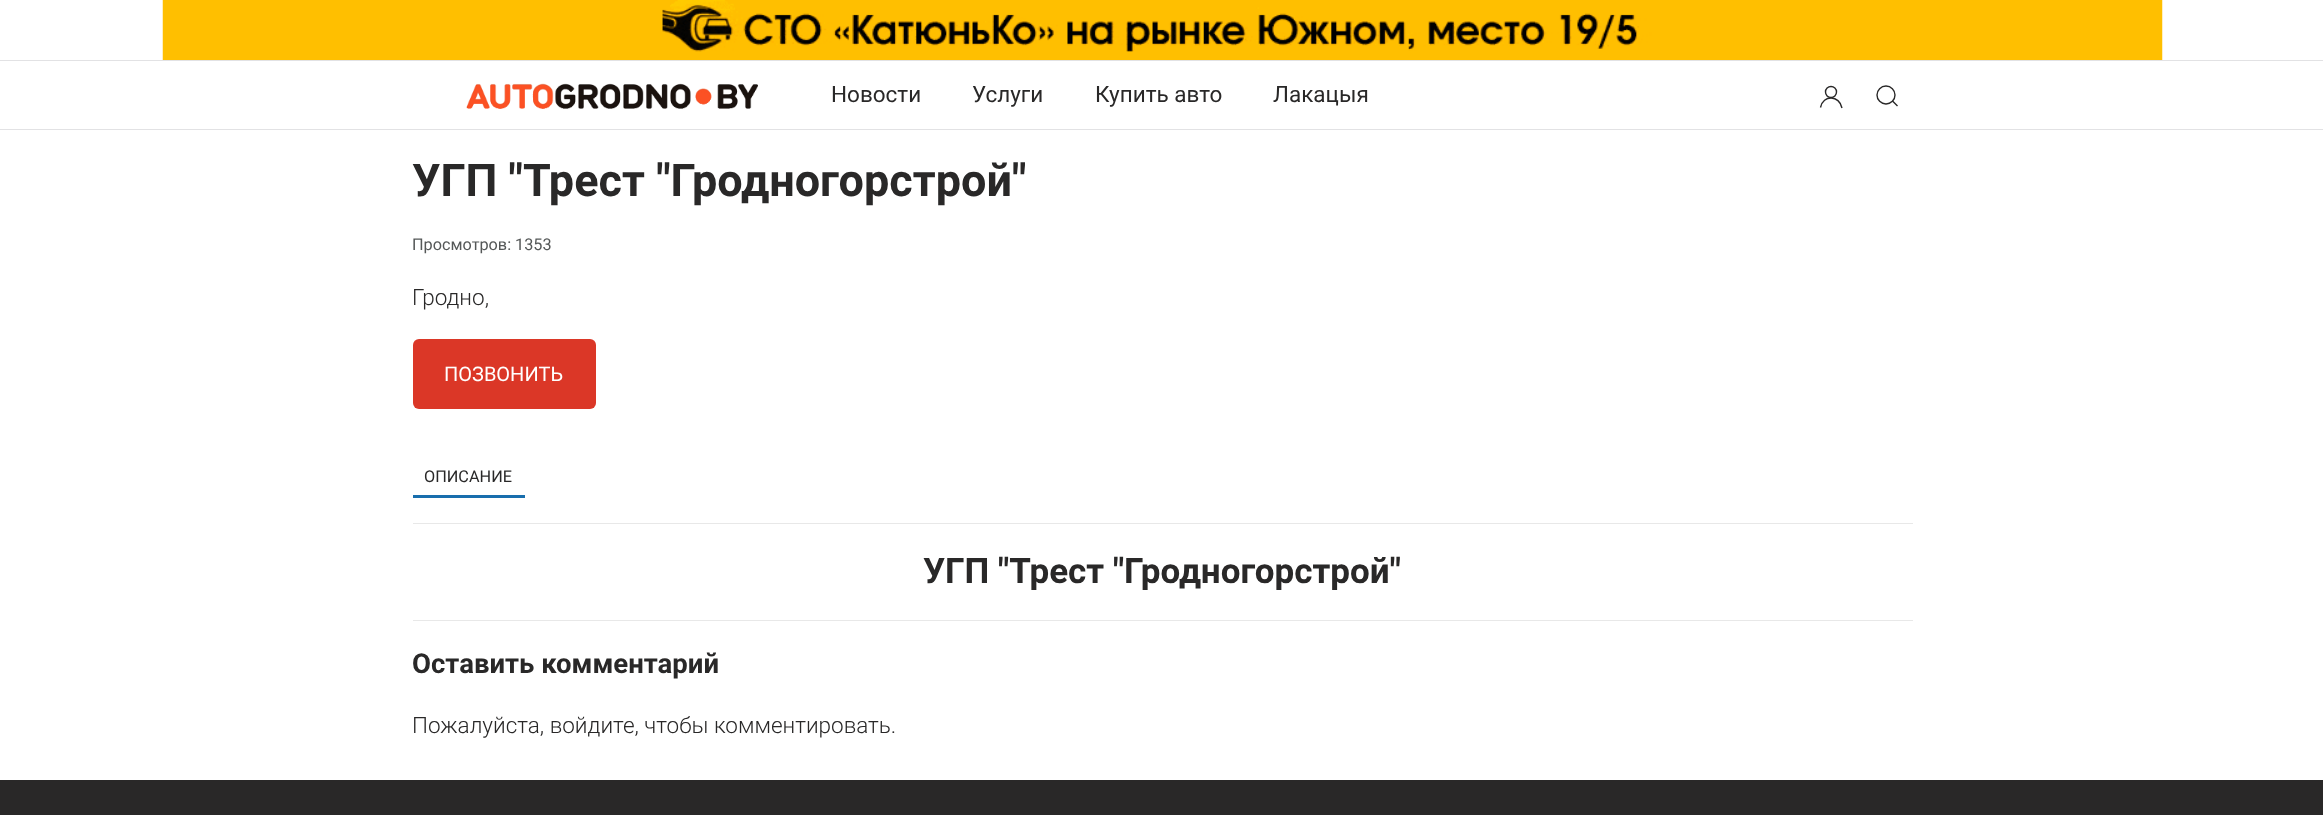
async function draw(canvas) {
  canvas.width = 2323
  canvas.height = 815
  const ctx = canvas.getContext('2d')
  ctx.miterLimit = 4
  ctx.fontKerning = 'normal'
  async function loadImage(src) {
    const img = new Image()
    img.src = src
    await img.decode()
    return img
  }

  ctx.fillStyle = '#fff'
  ctx.fillRect(0, 0, 2323, 815)
  ctx.drawImage(await loadImage('image0.png'), 162, 0, 2001, 60)
  ctx.fillStyle = '#e2e2e4'
  ctx.fillRect(0, 60, 2323, 1)
  ctx.fillRect(0, 129, 2323, 1)
  ctx.drawImage(await loadImage('image1.png'), 466, 83, 292, 26)
  ctx.font = '22.5px Roboto'
  ctx.fillStyle = '#292828'
  ctx.fillText('Новости', 831, 102)
  ctx.fillText('Услуги', 972, 102)
  ctx.fillText('Купить авто', 1095, 102)
  ctx.fillText('Лакацыя', 1273, 102)
  ctx.beginPath()
  ctx.arc(1831, 92, 5.5, 0, 2 * Math.PI)
  ctx.strokeStyle = '#292828'
  ctx.lineWidth = 1.4
  ctx.stroke()
  ctx.beginPath()
  ctx.moveTo(1820.5, 107.5)
  ctx.bezierCurveTo(1823, 94.5, 1839.5, 95, 1842, 108)
  ctx.stroke()
  ctx.beginPath()
  ctx.arc(1886, 95, 9, 0, 2 * Math.PI)
  ctx.stroke()
  ctx.beginPath()
  ctx.moveTo(1892.5, 101)
  ctx.lineTo(1897.5, 106)
  ctx.closePath()
  ctx.stroke()
  ctx.font = 'bold 45px Roboto'
  ctx.fillText('УГП "Трест "Гродногорстрой"', 412, 196)
  ctx.font = '16.25px Roboto'
  ctx.fillStyle = '#555858'
  ctx.fillText('Просмотров: 1353', 412, 250)
  ctx.font = '300 22.5px Roboto'
  ctx.fillStyle = '#292828'
  ctx.fillText('Гродно,', 412, 305)
  ctx.fillStyle = '#db3727'
  ctx.beginPath()
  ctx.roundRect(413, 339, 183, 70, 6)
  ctx.fill()
  ctx.font = '20px Roboto'
  ctx.fillStyle = '#fff'
  ctx.fillText('ПОЗВОНИТЬ', 444, 381)
  ctx.fillStyle = '#186ead'
  ctx.fillRect(413, 495, 112, 3)
  ctx.font = '16.25px Roboto'
  ctx.fillStyle = '#292828'
  ctx.fillText('ОПИСАНИЕ', 424, 482)
  ctx.fillStyle = '#e8e8e8'
  ctx.fillRect(413, 523, 1500, 1)
  ctx.font = 'bold 35px Roboto'
  ctx.fillStyle = '#292828'
  ctx.fillText('УГП "Трест "Гродногорстрой"', 923, 583)
  ctx.fillStyle = '#e8e8e8'
  ctx.fillRect(413, 620, 1500, 1)
  ctx.font = 'bold 27.5px Roboto'
  ctx.fillStyle = '#292828'
  ctx.fillText('Оставить комментарий', 412, 673)
  ctx.font = '300 22.5px Roboto'
  ctx.fillText('Пожалуйста, войдите, чтобы комментировать.', 412, 733)
  ctx.fillRect(0, 780, 2323, 35)
}

draw(document.querySelector('canvas'))
